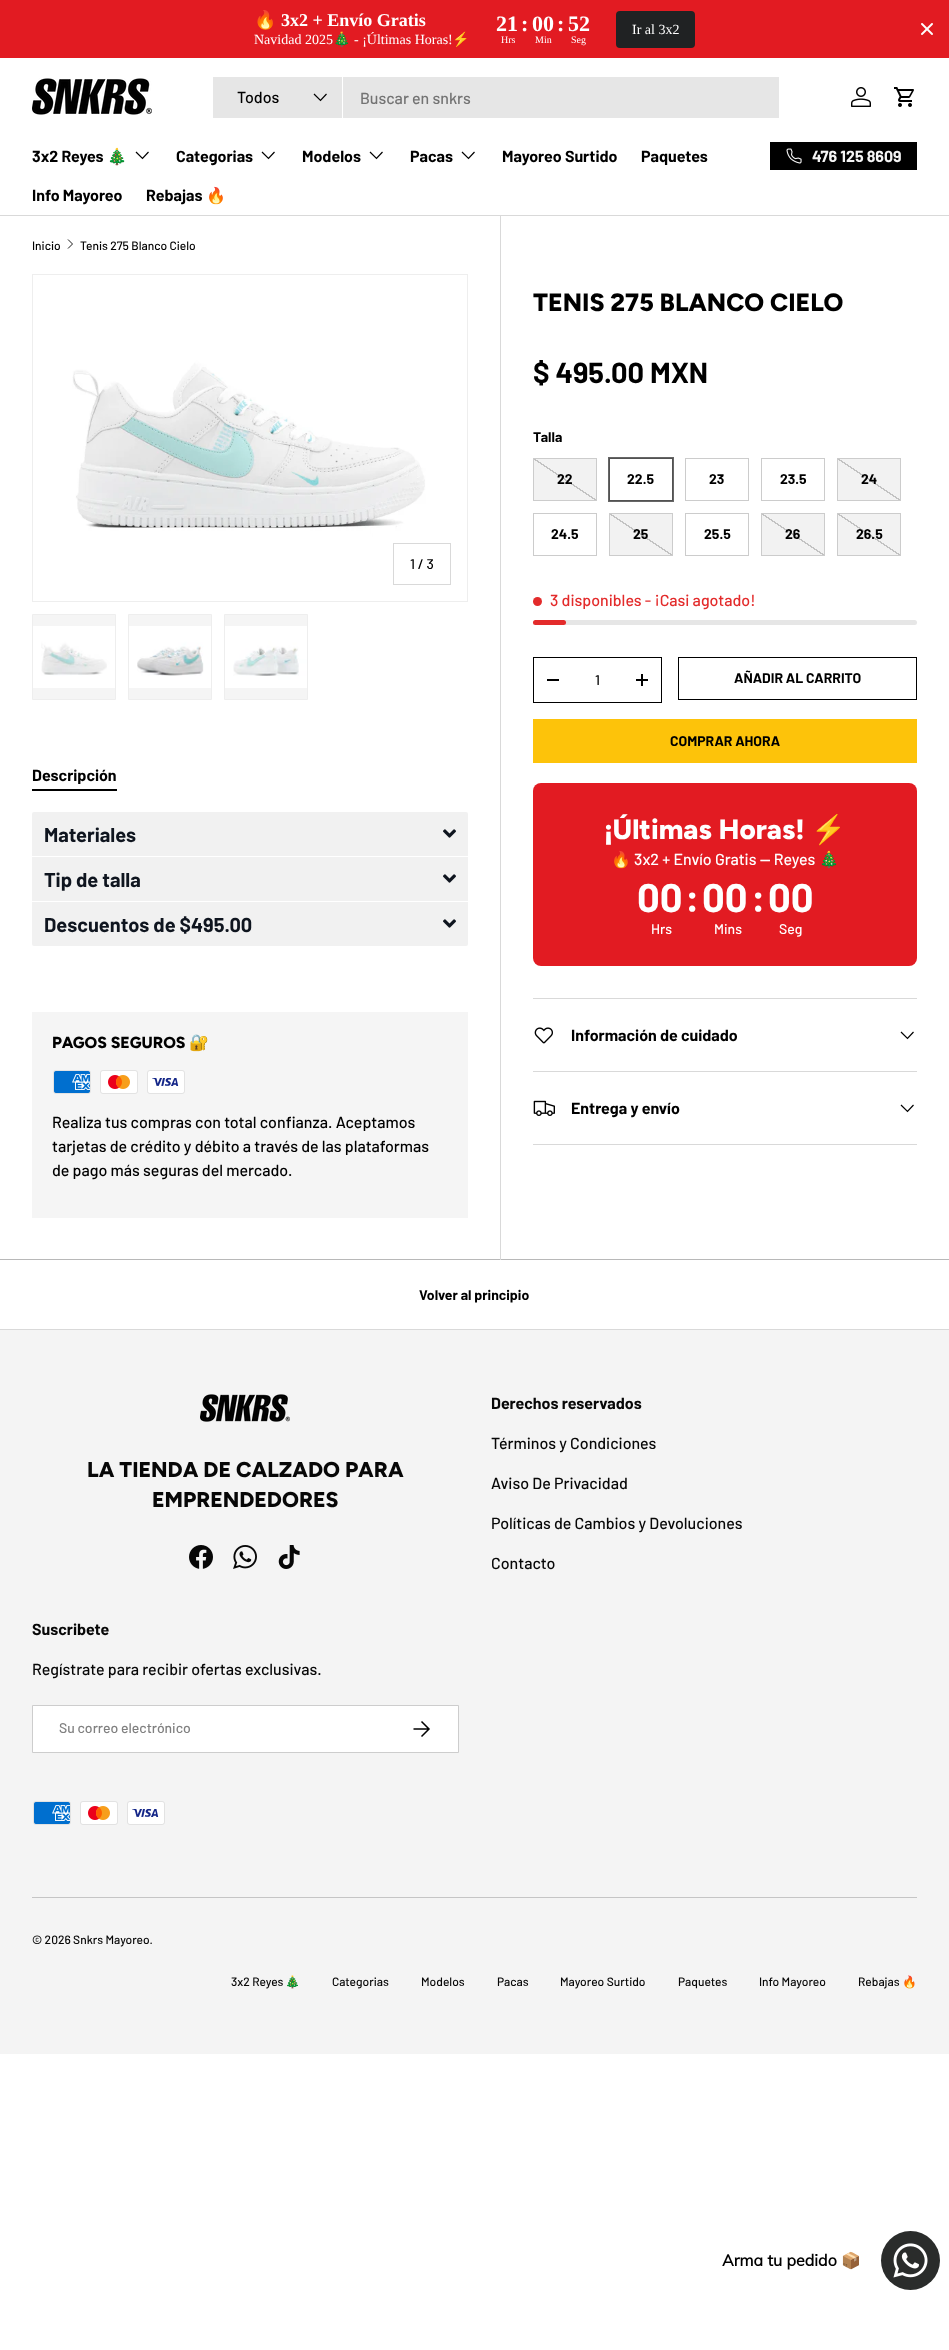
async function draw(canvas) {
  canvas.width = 949
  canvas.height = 2350
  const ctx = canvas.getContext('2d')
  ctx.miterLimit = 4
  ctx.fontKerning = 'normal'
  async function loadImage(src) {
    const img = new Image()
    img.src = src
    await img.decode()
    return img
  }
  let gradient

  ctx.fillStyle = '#fff'
  ctx.fillRect(0, 0, 949, 2350)
  ctx.fillStyle = '#e21b22'
  ctx.fillRect(0, 0, 949, 58)
  ctx.font = 'bold 18px Noto Color Emoji'
  ctx.fillStyle = '#fff'
  ctx.fillText('🔥', 254, 26)
  ctx.font = 'bold 18px Liberation Serif'
  ctx.fillText('3x2 + Envío Gratis', 281, 26)
  ctx.font = '14px Liberation Serif'
  ctx.fillText('Navidad 2025', 254, 44)
  ctx.font = '14px Noto Color Emoji'
  ctx.fillText('🎄', 333, 44)
  ctx.font = '14px Liberation Serif'
  ctx.fillText('- ¡Últimas Horas!', 354, 44)
  ctx.font = '14px Noto Color Emoji'
  ctx.fillText('⚡', 452, 44)
  ctx.font = 'bold 22px Liberation Serif'
  ctx.fillText('21', 496, 31)
  ctx.fillText(':', 521, 31)
  ctx.fillText('00', 532, 31)
  ctx.fillText(':', 557, 31)
  ctx.fillText('52', 568, 31)
  ctx.font = '10px Liberation Serif'
  ctx.fillText('Hrs', 501, 43)
  ctx.fillText('Min', 535, 43)
  ctx.fillText('Seg', 571, 43)
  ctx.fillStyle = '#202223'
  ctx.beginPath()
  ctx.roundRect(616, 11, 79, 37, 4)
  ctx.fill()
  ctx.font = '14px Liberation Serif'
  ctx.fillStyle = '#fff'
  ctx.fillText('Ir al 3x2', 632, 34)
  ctx.drawImage(await loadImage('image0.png'), 921, 23, 12, 12)
  ctx.fillStyle = '#d9d9d9'
  ctx.fillRect(0, 215, 949, 1)
  ctx.drawImage(await loadImage('image1.png'), 32, 78, 120, 37)
  ctx.fillStyle = '#e6e6e6'
  ctx.fillRect(213, 77, 566, 41)
  ctx.fillStyle = '#fff'
  ctx.fillRect(342, 77, 1, 41)
  ctx.font = '500 16px Barlow'
  ctx.fillStyle = '#000'
  ctx.fillText('Todos', 237, 103)
  ctx.beginPath()
  ctx.moveTo(326.5, 94)
  ctx.lineTo(320.5, 100.5)
  ctx.lineTo(314, 94)
  ctx.strokeStyle = '#000'
  ctx.lineWidth = 1.2
  ctx.stroke()
  ctx.fillStyle = '#737373'
  ctx.fillText('Buscar en snkrs', 360, 104)
  ctx.drawImage(await loadImage('image2.png'), 851, 87, 20, 20)
  ctx.drawImage(await loadImage('image3.png'), 894, 87, 20, 20)
  ctx.font = 'bold 16px Barlow'
  ctx.fillStyle = '#000'
  ctx.fillText('3x2 Reyes', 32, 162)
  ctx.font = 'bold 16px Noto Color Emoji'
  ctx.fillText('🎄', 107, 162)
  ctx.beginPath()
  ctx.moveTo(148.5, 152)
  ctx.lineTo(142.5, 158.5)
  ctx.lineTo(136, 152)
  ctx.stroke()
  ctx.font = 'bold 16px Barlow'
  ctx.fillText('Categorias', 176, 162)
  ctx.beginPath()
  ctx.moveTo(274.5, 152)
  ctx.lineTo(268.5, 158.5)
  ctx.lineTo(262, 152)
  ctx.stroke()
  ctx.fillText('Modelos', 302, 162)
  ctx.beginPath()
  ctx.moveTo(382.5, 152)
  ctx.lineTo(376.5, 158.5)
  ctx.lineTo(370, 152)
  ctx.stroke()
  ctx.fillText('Pacas', 410, 162)
  ctx.beginPath()
  ctx.moveTo(474.5, 152)
  ctx.lineTo(468.5, 158.5)
  ctx.lineTo(462, 152)
  ctx.stroke()
  ctx.fillText('Mayoreo Surtido', 502, 162)
  ctx.fillText('Paquetes', 641, 162)
  ctx.fillText('Info Mayoreo', 32, 201)
  ctx.fillText('Rebajas', 146, 201)
  ctx.font = 'bold 16px Noto Color Emoji'
  ctx.fillText('🔥', 206, 201)
  gradient = ctx.createLinearGradient(491, 104, 906, 208)
  gradient.addColorStop(0.6, '#2d2d2d')
  gradient.addColorStop(0.6, '#000')
  gradient.addColorStop(1, '#000')
  ctx.fillStyle = gradient
  ctx.fillRect(771, 143, 145, 26)
  ctx.lineWidth = 1
  ctx.strokeRect(770.5, 142.5, 146, 27)
  ctx.drawImage(await loadImage('image4.png'), 786, 148, 16, 16)
  ctx.font = 'bold 16px Barlow'
  ctx.fillStyle = '#f5f5f5'
  ctx.fillText('476 125 8609', 812, 162)
  ctx.font = '500 12px Barlow'
  ctx.fillStyle = '#000'
  ctx.fillText('Inicio', 32, 250)
  ctx.beginPath()
  ctx.moveTo(68, 239.5)
  ctx.lineTo(72.5, 244)
  ctx.lineTo(68, 248.5)
  ctx.lineWidth = 0.9
  ctx.stroke()
  ctx.fillText('Tenis 275 Blanco Cielo', 80, 250)
  ctx.font = 'bold 16px Barlow'
  ctx.fillText('Descripción', 32, 781)
  ctx.fillRect(32, 789, 85, 2)
  ctx.fillStyle = '#f1f1f1'
  ctx.beginPath()
  ctx.roundRect(32, 812, 436, 44, [2, 2, 0, 0])
  ctx.fill()
  ctx.font = 'bold 20px Barlow'
  ctx.fillStyle = '#0f151f'
  ctx.fillText('Materiales', 44, 842)
  ctx.drawImage(await loadImage('image5.png'), 443, 829, 13, 9)
  ctx.fillStyle = '#f1f1f1'
  ctx.fillRect(32, 857, 436, 44)
  ctx.fillStyle = '#0f151f'
  ctx.fillText('Tip de talla', 44, 887)
  ctx.drawImage(await loadImage('image5.png'), 443, 874, 13, 9)
  ctx.fillStyle = '#f1f1f1'
  ctx.beginPath()
  ctx.roundRect(32, 902, 436, 44, [0, 0, 2, 2])
  ctx.fill()
  ctx.fillStyle = '#0f151f'
  ctx.fillText('Descuentos de $495.00', 44, 932)
  ctx.drawImage(await loadImage('image5.png'), 443, 919, 13, 9)
  ctx.fillStyle = '#f5f5f5'
  ctx.fillRect(32, 1012, 436, 206)
  ctx.font = '800 16px Figtree'
  ctx.fillStyle = '#000'
  ctx.fillText('PAGOS SEGUROS', 52, 1048)
  ctx.font = 'bold 16px Noto Color Emoji'
  ctx.fillText('🔐', 189, 1048)
  ctx.drawImage(await loadImage('image6.png'), 53, 1070, 38, 24)
  ctx.drawImage(await loadImage('image7.png'), 100, 1070, 38, 24)
  ctx.drawImage(await loadImage('image8.png'), 147, 1070, 38, 24)
  ctx.font = '500 16px Barlow'
  ctx.fillText('Realiza tus compras con total confianza. Aceptamos', 52, 1128)
  ctx.fillText('tarjetas de crédito y débito a través de las plataformas', 52, 1152)
  ctx.fillText('de pago más seguras del mercado.', 52, 1176)
  ctx.strokeStyle = '#eee'
  ctx.lineWidth = 1
  ctx.strokeRect(32.5, 274.5, 435, 327)
  ctx.drawImage(await loadImage('image9.png'), 33, 275, 434, 326)
  ctx.strokeStyle = '#d9d9d9'
  ctx.strokeRect(393.5, 543.5, 57, 41)
  ctx.font = '500 14px Barlow'
  ctx.fillText('1 / 3', 410, 569)
  ctx.fillStyle = '#f5f5f5'
  ctx.beginPath()
  ctx.rect(32.5, 614.5, 83, 85)
  ctx.fill()
  ctx.strokeStyle = '#eee'
  ctx.stroke()
  ctx.drawImage(await loadImage('image10.png'), 33, 626, 82, 62)
  ctx.beginPath()
  ctx.rect(128.5, 614.5, 83, 85)
  ctx.fill()
  ctx.stroke()
  ctx.drawImage(await loadImage('image11.png'), 129, 626, 82, 62)
  ctx.beginPath()
  ctx.rect(224.5, 614.5, 83, 85)
  ctx.fill()
  ctx.stroke()
  ctx.drawImage(await loadImage('image12.png'), 225, 626, 82, 62)
  ctx.fillStyle = '#b8b8b8'
  ctx.fillRect(0, 1259, 949, 1)
  ctx.fillStyle = '#d9d9d9'
  ctx.fillRect(500, 216, 1, 1044)
  ctx.font = '800 25px Figtree'
  ctx.fillStyle = '#000'
  ctx.fillText('TENIS 275 BLANCO CIELO', 533, 311)
  ctx.font = 'bold 29px Barlow'
  ctx.fillText('$ 495.00 MXN', 533, 383)
  ctx.font = 'bold 14px Barlow'
  ctx.fillText('Talla', 533, 442)
  gradient = ctx.createLinearGradient(584, 451, 546, 508)
  gradient.addColorStop(0.49, '#f2f2f2')
  gradient.addColorStop(0.49, '#c2c2c2')
  gradient.addColorStop(0.51, '#c2c2c2')
  gradient.addColorStop(0.51, '#f2f2f2')
  ctx.fillStyle = gradient
  ctx.fillRect(534, 459, 62, 41)
  ctx.strokeStyle = '#ccc'
  ctx.strokeRect(533.5, 458.5, 63, 42)
  ctx.fillStyle = '#000'
  ctx.fillText('22', 557, 484)
  ctx.strokeRect(609.5, 458.5, 63, 42)
  ctx.strokeStyle = '#00000099'
  ctx.lineWidth = 2
  ctx.strokeRect(609, 458, 64, 43)
  ctx.fillText('22.5', 627, 484)
  ctx.strokeStyle = '#ccc'
  ctx.lineWidth = 1
  ctx.strokeRect(685.5, 458.5, 63, 42)
  ctx.fillText('23', 709, 484)
  ctx.strokeRect(761.5, 458.5, 63, 42)
  ctx.fillText('23.5', 780, 484)
  gradient = ctx.createLinearGradient(888, 451, 850, 508)
  gradient.addColorStop(0.49, '#f2f2f2')
  gradient.addColorStop(0.49, '#c2c2c2')
  gradient.addColorStop(0.51, '#c2c2c2')
  gradient.addColorStop(0.51, '#f2f2f2')
  ctx.fillStyle = gradient
  ctx.fillRect(838, 459, 62, 41)
  ctx.strokeRect(837.5, 458.5, 63, 42)
  ctx.fillStyle = '#000'
  ctx.fillText('24', 861, 484)
  ctx.strokeRect(533.5, 513.5, 63, 42)
  ctx.fillText('24.5', 551, 539)
  gradient = ctx.createLinearGradient(660, 506, 622, 563)
  gradient.addColorStop(0.49, '#f2f2f2')
  gradient.addColorStop(0.49, '#c2c2c2')
  gradient.addColorStop(0.51, '#c2c2c2')
  gradient.addColorStop(0.51, '#f2f2f2')
  ctx.fillStyle = gradient
  ctx.fillRect(610, 514, 62, 41)
  ctx.strokeRect(609.5, 513.5, 63, 42)
  ctx.fillStyle = '#000'
  ctx.fillText('25', 633, 539)
  ctx.strokeRect(685.5, 513.5, 63, 42)
  ctx.fillText('25.5', 704, 539)
  gradient = ctx.createLinearGradient(812, 506, 774, 563)
  gradient.addColorStop(0.49, '#f2f2f2')
  gradient.addColorStop(0.49, '#c2c2c2')
  gradient.addColorStop(0.51, '#c2c2c2')
  gradient.addColorStop(0.51, '#f2f2f2')
  ctx.fillStyle = gradient
  ctx.fillRect(762, 514, 62, 41)
  ctx.strokeRect(761.5, 513.5, 63, 42)
  ctx.fillStyle = '#000'
  ctx.fillText('26', 785, 539)
  gradient = ctx.createLinearGradient(888, 506, 850, 563)
  gradient.addColorStop(0.49, '#f2f2f2')
  gradient.addColorStop(0.49, '#c2c2c2')
  gradient.addColorStop(0.51, '#c2c2c2')
  gradient.addColorStop(0.51, '#f2f2f2')
  ctx.fillStyle = gradient
  ctx.fillRect(838, 514, 62, 41)
  ctx.strokeRect(837.5, 513.5, 63, 42)
  ctx.fillStyle = '#000'
  ctx.fillText('26.5', 856, 539)
  ctx.fillStyle = '#e32b2b'
  ctx.beginPath()
  ctx.arc(537.5, 601.5, 4.5, 0, 2 * Math.PI)
  ctx.fill()
  ctx.font = '500 16px Barlow'
  ctx.fillText('3 disponibles - ¡Casi agotado!', 550, 606)
  ctx.fillStyle = '#e6e6e6'
  ctx.beginPath()
  ctx.roundRect(533, 620, 384, 5, 2.5)
  ctx.fill()
  ctx.fillStyle = '#e32b2b'
  ctx.beginPath()
  ctx.roundRect(533, 620, 33, 5, 2.5)
  ctx.fill()
  ctx.strokeStyle = '#000'
  ctx.strokeRect(533.5, 657.5, 128, 45)
  ctx.fillStyle = '#000'
  ctx.fillRect(547, 679, 12, 2)
  ctx.font = '500 14px Barlow'
  ctx.fillText('1', 595, 685)
  ctx.fillRect(636, 679, 12, 2)
  ctx.fillRect(641, 674, 2, 12)
  ctx.strokeRect(678.5, 657.5, 238, 42)
  ctx.font = 'bold 14px Barlow'
  ctx.fillText('AÑADIR AL CARRITO', 734, 683)
  gradient = ctx.createLinearGradient(-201, 605, 887, 877)
  gradient.addColorStop(0.6, '#e6b10a')
  gradient.addColorStop(0.6, '#fdc30a')
  gradient.addColorStop(1, '#fdc30a')
  ctx.fillStyle = gradient
  ctx.fillRect(534, 720, 382, 42)
  ctx.strokeStyle = '#fdc30a'
  ctx.strokeRect(533.5, 719.5, 383, 43)
  ctx.fillStyle = '#000'
  ctx.fillText('COMPRAR AHORA', 670, 746)
  ctx.fillStyle = '#e21b22'
  ctx.beginPath()
  ctx.roundRect(533, 783, 384, 183, 8)
  ctx.fill()
  ctx.font = '800 28px Figtree'
  ctx.fillStyle = '#fff'
  ctx.fillText('¡Últimas Horas!', 604, 839)
  ctx.font = 'bold 28px Noto Color Emoji'
  ctx.fillText('⚡', 811, 839)
  ctx.font = '16px Noto Color Emoji'
  ctx.fillText('🔥', 611, 865)
  ctx.font = '500 16px Barlow'
  ctx.fillText('3x2 + Envío Gratis — Reyes', 634, 865)
  ctx.font = '16px Noto Color Emoji'
  ctx.fillText('🎄', 819, 865)
  ctx.font = 'bold 40px Barlow'
  ctx.fillText('00', 637, 912)
  ctx.fillText(':', 685, 912)
  ctx.fillText('00', 702, 912)
  ctx.fillText(':', 751, 912)
  ctx.fillText('00', 768, 912)
  ctx.font = '500 14px Barlow'
  ctx.fillText('Hrs', 651, 934)
  ctx.fillText('Mins', 714, 934)
  ctx.fillText('Seg', 779, 934)
  ctx.fillStyle = '#d9d9d9'
  ctx.fillRect(533, 998, 384, 1)
  ctx.fillRect(533, 1071, 384, 1)
  ctx.drawImage(await loadImage('image13.png'), 534, 1027, 19, 17)
  ctx.font = 'bold 16px Barlow'
  ctx.fillStyle = '#000'
  ctx.fillText('Información de cuidado', 571, 1041)
  ctx.beginPath()
  ctx.moveTo(913.5, 1032)
  ctx.lineTo(907.5, 1038.5)
  ctx.lineTo(901, 1032)
  ctx.strokeStyle = '#000'
  ctx.lineWidth = 1.2
  ctx.stroke()
  ctx.fillStyle = '#d9d9d9'
  ctx.fillRect(533, 1144, 384, 1)
  ctx.drawImage(await loadImage('image14.png'), 533, 1100, 22, 16)
  ctx.fillStyle = '#000'
  ctx.fillText('Entrega y envío', 571, 1114)
  ctx.beginPath()
  ctx.moveTo(913.5, 1105)
  ctx.lineTo(907.5, 1111.5)
  ctx.lineTo(901, 1105)
  ctx.stroke()
  ctx.fillStyle = '#d9d9d9'
  ctx.fillRect(0, 1329, 949, 1)
  ctx.font = 'bold 14px Barlow'
  ctx.fillStyle = '#000'
  ctx.fillText('Volver al principio', 419, 1300)
  ctx.fillStyle = '#f4f4f4'
  ctx.fillRect(0, 1330, 949, 724)
  ctx.drawImage(await loadImage('image15.png'), 200, 1394, 90, 28)
  ctx.font = '800 21.4px Figtree'
  ctx.fillStyle = '#070707'
  ctx.fillText('LA TIENDA DE CALZADO PARA', 87, 1477)
  ctx.fillText('EMPRENDEDORES', 152, 1507)
  ctx.drawImage(await loadImage('image16.png'), 189, 1545, 24, 24)
  ctx.drawImage(await loadImage('image17.png'), 233, 1545, 24, 24)
  ctx.drawImage(await loadImage('image18.png'), 278, 1545, 22, 24)
  ctx.font = 'bold 16px Barlow'
  ctx.fillText('Derechos reservados', 491, 1409)
  ctx.font = '500 16px Barlow'
  ctx.fillText('Términos y Condiciones', 491, 1449)
  ctx.fillText('Aviso De Privacidad', 491, 1489)
  ctx.fillText('Políticas de Cambios y Devoluciones', 491, 1529)
  ctx.fillText('Contacto', 491, 1569)
  ctx.font = 'bold 16px Barlow'
  ctx.fillText('Suscribete', 32, 1635)
  ctx.font = '500 16px Barlow'
  ctx.fillText('Regístrate para recibir ofertas exclusivas.', 32, 1675)
  ctx.fillStyle = '#fff'
  ctx.beginPath()
  ctx.rect(32.5, 1705.5, 426, 47)
  ctx.fill()
  ctx.strokeStyle = '#cdcdcd'
  ctx.lineWidth = 1
  ctx.stroke()
  ctx.font = '500 14px Barlow'
  ctx.fillStyle = '#808080'
  ctx.fillText('Su correo electrónico', 59, 1733)
  ctx.beginPath()
  ctx.moveTo(413.5, 1729)
  ctx.lineTo(428.5, 1729)
  ctx.moveTo(421.5, 1721.5)
  ctx.lineTo(429, 1729)
  ctx.lineTo(421.5, 1736.5)
  ctx.strokeStyle = '#000'
  ctx.lineWidth = 1.5
  ctx.stroke()
  ctx.drawImage(await loadImage('image19.png'), 33, 1801, 38, 24)
  ctx.drawImage(await loadImage('image20.png'), 80, 1801, 38, 24)
  ctx.drawImage(await loadImage('image21.png'), 127, 1801, 38, 24)
  ctx.fillStyle = '#c5c5c5'
  ctx.fillRect(32, 1897, 885, 1)
  ctx.font = '500 12px Barlow'
  ctx.fillStyle = '#070707'
  ctx.fillText('© 2026 Snkrs Mayoreo.', 32, 1944)
  ctx.fillText('3x2 Reyes', 231, 1986)
  ctx.font = '12px Noto Color Emoji'
  ctx.fillText('🎄', 285, 1986)
  ctx.font = '500 12px Barlow'
  ctx.fillText('Categorias', 332, 1986)
  ctx.fillText('Modelos', 421, 1986)
  ctx.fillText('Pacas', 497, 1986)
  ctx.fillText('Mayoreo Surtido', 560, 1986)
  ctx.fillText('Paquetes', 678, 1986)
  ctx.fillText('Info Mayoreo', 759, 1986)
  ctx.fillText('Rebajas', 858, 1986)
  ctx.font = '12px Noto Color Emoji'
  ctx.fillText('🔥', 902, 1986)
  ctx.fillStyle = '#2a2c2b'
  ctx.beginPath()
  ctx.arc(910.5, 2260.5, 29.5, 0, 2 * Math.PI)
  ctx.fill()
  ctx.font = 'bold 16px Muli'
  ctx.fillStyle = '#000'
  ctx.fillText('Arma tu pedido', 722, 2266)
  ctx.font = 'bold 16px Noto Color Emoji'
  ctx.fillText('📦', 841, 2266)
  ctx.drawImage(await loadImage('image22.png'), 893, 2243, 35, 35)
}

draw(document.querySelector('canvas'))
